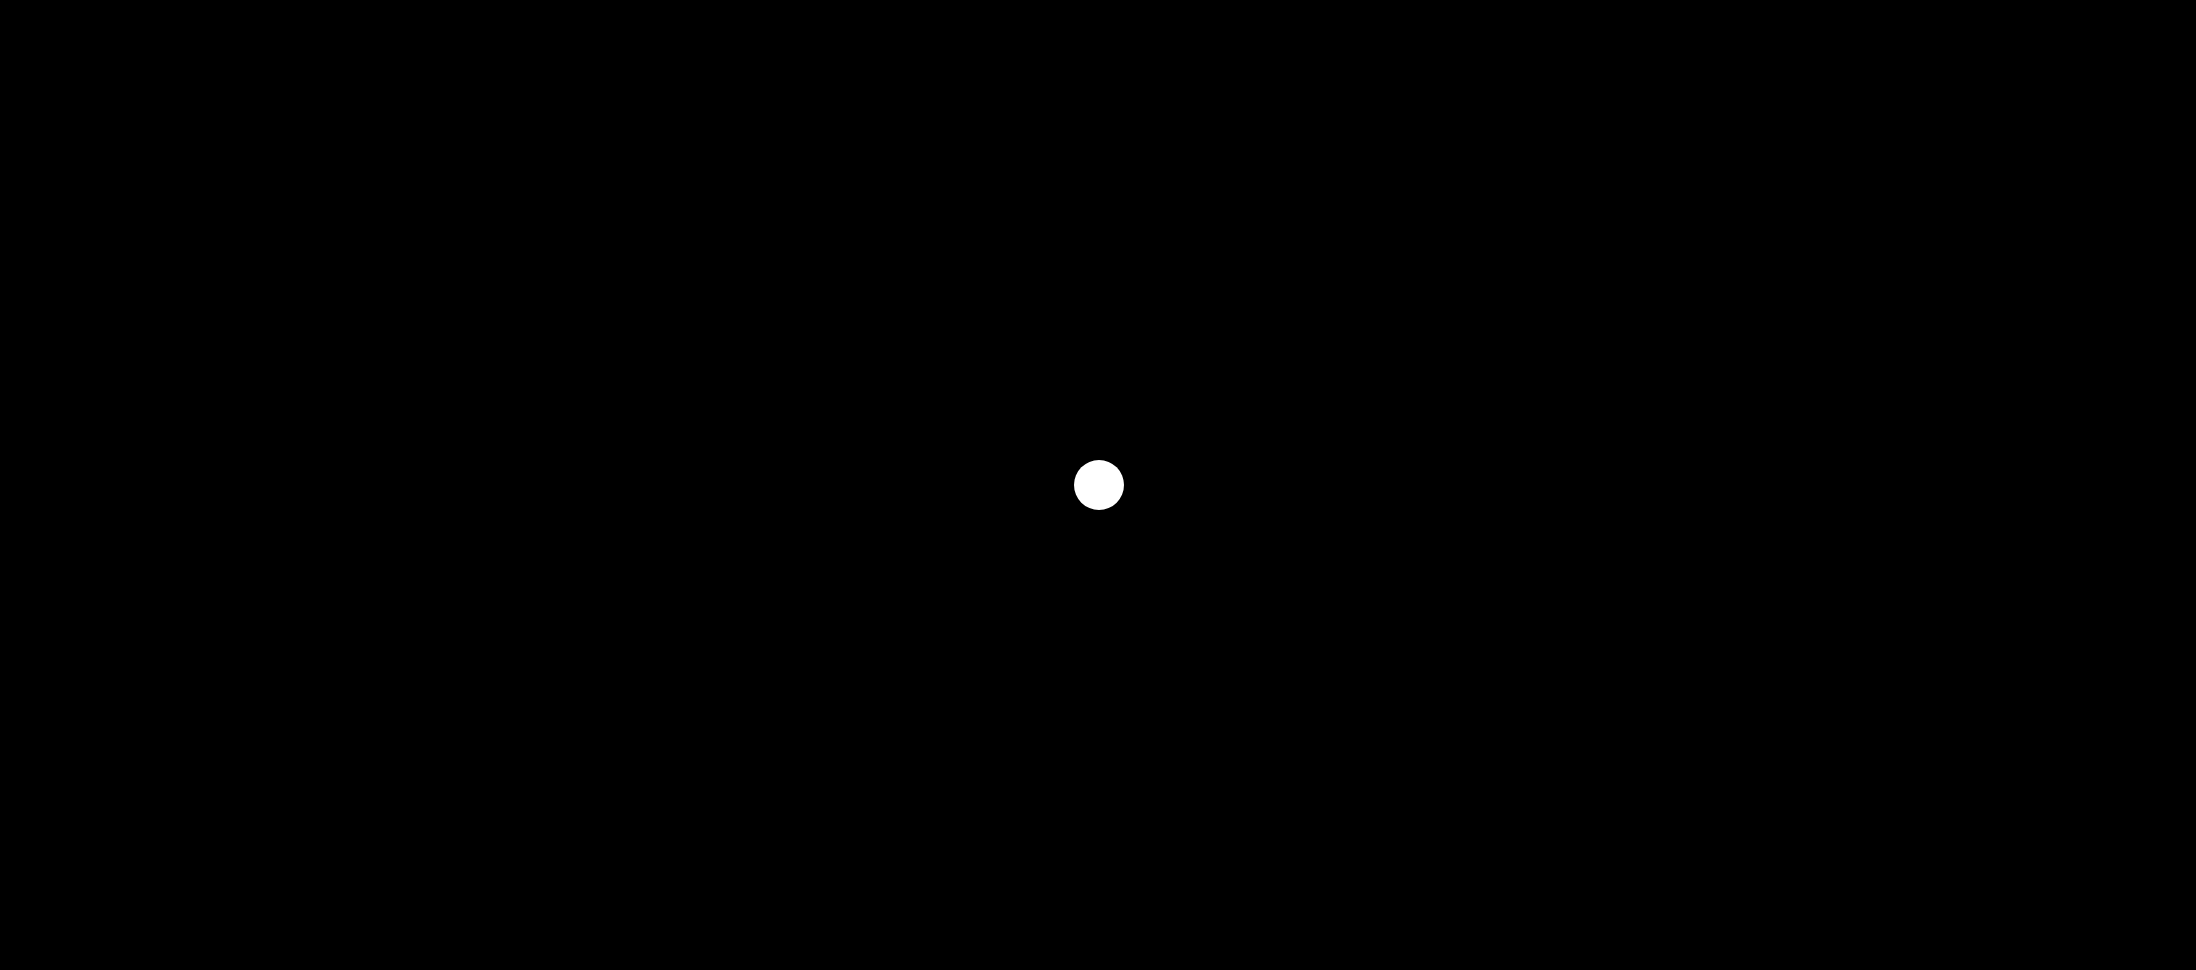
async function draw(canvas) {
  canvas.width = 2196
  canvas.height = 970
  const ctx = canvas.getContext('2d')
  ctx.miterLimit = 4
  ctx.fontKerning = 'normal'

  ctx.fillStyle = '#000'
  ctx.fillRect(0, 0, 2196, 970)
  ctx.fillStyle = '#fff'
  ctx.beginPath()
  ctx.arc(1099, 485, 25, 0, 2 * Math.PI)
  ctx.fill()
}

draw(document.querySelector('canvas'))
